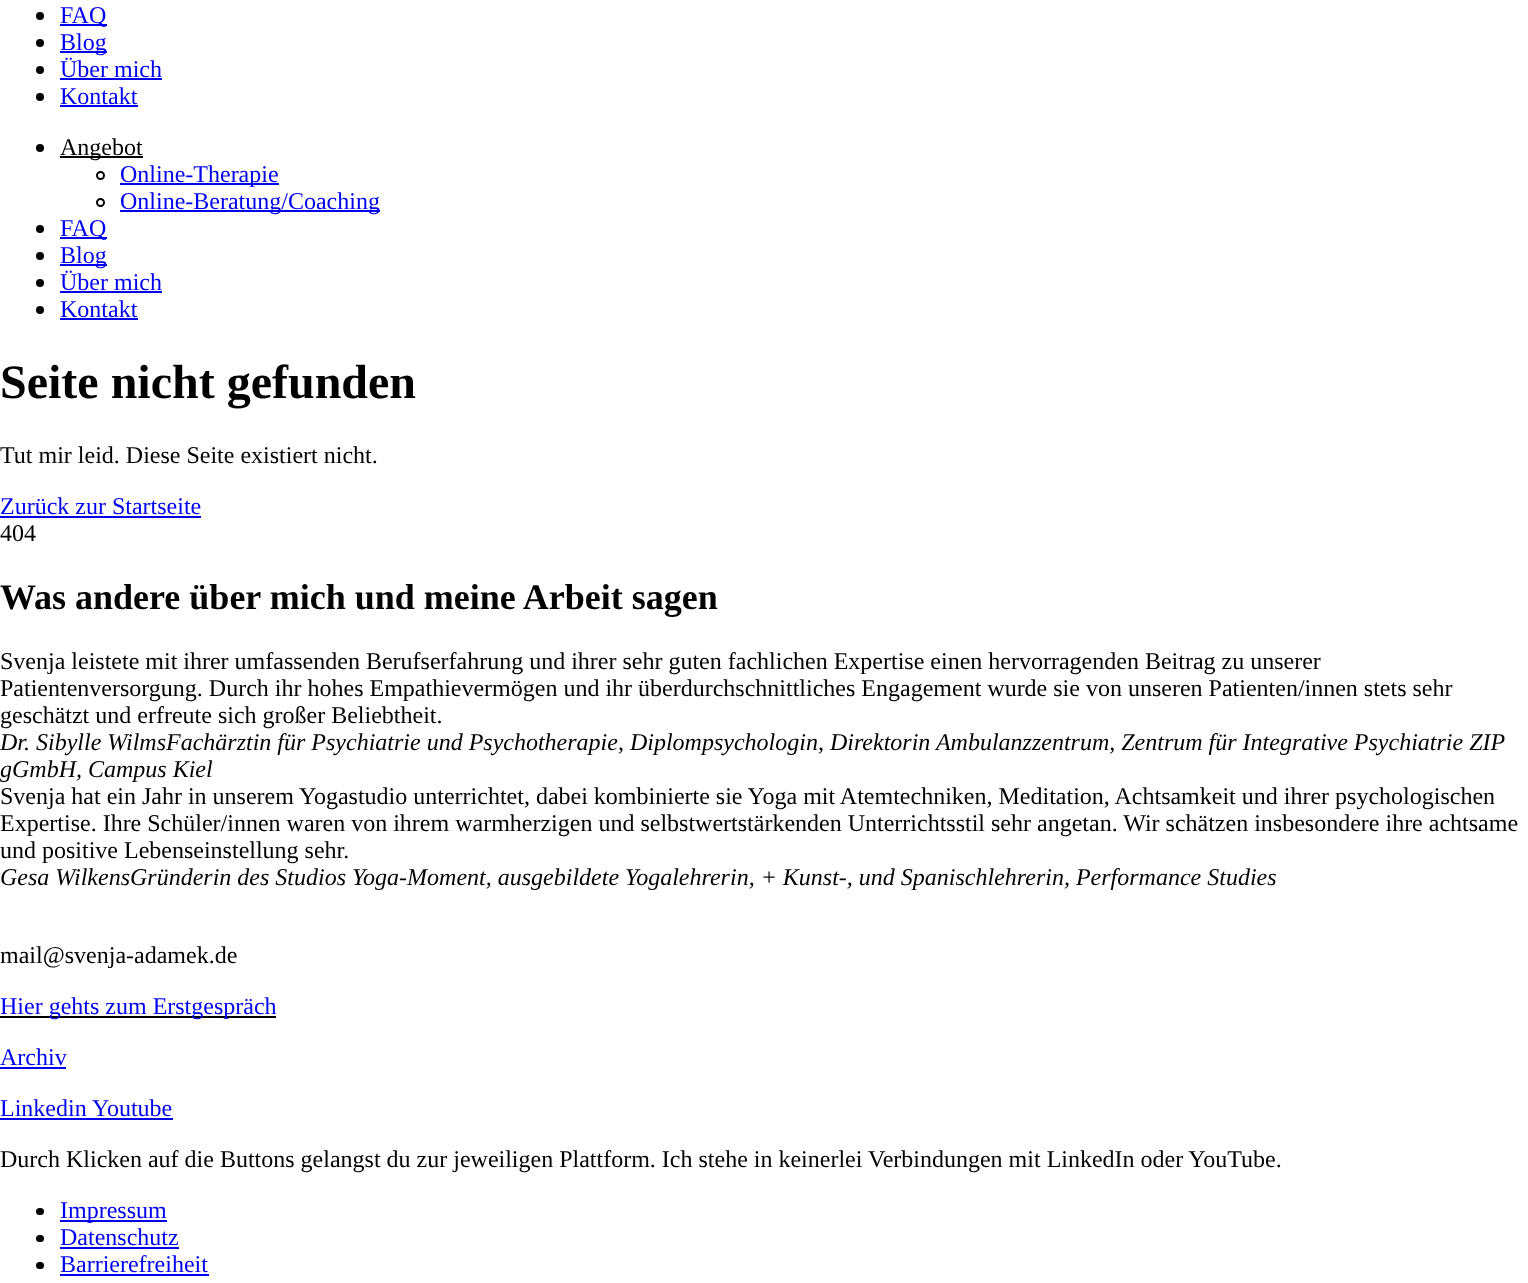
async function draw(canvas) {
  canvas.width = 1528
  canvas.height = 1283
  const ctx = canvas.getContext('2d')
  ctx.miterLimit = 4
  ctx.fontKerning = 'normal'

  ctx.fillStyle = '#fff'
  ctx.fillRect(0, 0, 1528, 1283)
  ctx.fillStyle = '#000'
  ctx.beginPath()
  ctx.arc(40, 16, 4, 0, 2 * Math.PI)
  ctx.fill()
  ctx.fillStyle = '#00e'
  ctx.fillRect(60, 24, 47, 2)
  ctx.font = '24px Liberation Serif'
  ctx.fillText('FAQ', 60, 23)
  ctx.fillStyle = '#000'
  ctx.beginPath()
  ctx.arc(40, 43, 4, 0, 2 * Math.PI)
  ctx.fill()
  ctx.fillStyle = '#00e'
  ctx.fillRect(60, 51, 47, 2)
  ctx.fillText('Blog', 60, 50)
  ctx.fillStyle = '#000'
  ctx.beginPath()
  ctx.arc(40, 70, 4, 0, 2 * Math.PI)
  ctx.fill()
  ctx.fillStyle = '#00e'
  ctx.fillText('Über mich', 60, 77)
  ctx.fillRect(60, 78, 102, 2)
  ctx.fillStyle = '#000'
  ctx.beginPath()
  ctx.arc(40, 97, 4, 0, 2 * Math.PI)
  ctx.fill()
  ctx.fillStyle = '#00e'
  ctx.fillText('Kontakt', 60, 104)
  ctx.fillRect(60, 105, 78, 2)
  ctx.fillStyle = '#000'
  ctx.beginPath()
  ctx.arc(40, 148, 4, 0, 2 * Math.PI)
  ctx.fill()
  ctx.fillRect(60, 156, 83, 2)
  ctx.fillText('Angebot', 60, 155)
  ctx.beginPath()
  ctx.arc(100.5, 175.5, 3.5, 0, 2 * Math.PI)
  ctx.strokeStyle = '#000'
  ctx.lineWidth = 2
  ctx.stroke()
  ctx.fillStyle = '#00e'
  ctx.fillRect(120, 183, 159, 2)
  ctx.fillText('Online-Therapie', 120, 182)
  ctx.beginPath()
  ctx.arc(100.5, 202.5, 3.5, 0, 2 * Math.PI)
  ctx.stroke()
  ctx.fillRect(120, 210, 260, 2)
  ctx.fillText('Online-Beratung/Coaching', 120, 209)
  ctx.fillStyle = '#000'
  ctx.beginPath()
  ctx.arc(40, 229, 4, 0, 2 * Math.PI)
  ctx.fill()
  ctx.fillStyle = '#00e'
  ctx.fillRect(60, 237, 47, 2)
  ctx.fillText('FAQ', 60, 236)
  ctx.fillStyle = '#000'
  ctx.beginPath()
  ctx.arc(40, 256, 4, 0, 2 * Math.PI)
  ctx.fill()
  ctx.fillStyle = '#00e'
  ctx.fillRect(60, 264, 47, 2)
  ctx.fillText('Blog', 60, 263)
  ctx.fillStyle = '#000'
  ctx.beginPath()
  ctx.arc(40, 283, 4, 0, 2 * Math.PI)
  ctx.fill()
  ctx.fillStyle = '#00e'
  ctx.fillText('Über mich', 60, 290)
  ctx.fillRect(60, 291, 102, 2)
  ctx.fillStyle = '#000'
  ctx.beginPath()
  ctx.arc(40, 310, 4, 0, 2 * Math.PI)
  ctx.fill()
  ctx.fillStyle = '#00e'
  ctx.fillText('Kontakt', 60, 317)
  ctx.fillRect(60, 318, 78, 2)
  ctx.font = 'bold 48px Liberation Serif'
  ctx.fillStyle = '#000'
  ctx.fillText('Seite nicht gefunden', 0, 398)
  ctx.font = '24px Liberation Serif'
  ctx.fillText('Tut mir leid. Diese Seite existiert nicht.', 0, 463)
  ctx.fillStyle = '#00e'
  ctx.fillText('Zurück zur Startseite', 0, 514)
  ctx.fillRect(0, 516, 201, 2)
  ctx.fillStyle = '#000'
  ctx.fillText('404', 0, 541)
  ctx.font = 'bold 36px Liberation Serif'
  ctx.fillText('Was andere über mich und meine Arbeit sagen', 0, 609)
  ctx.font = '24px Liberation Serif'
  ctx.fillText('Svenja leistete mit ihrer umfassenden Berufserfahrung und ihrer sehr guten fachlichen Expertise einen hervorragenden Beitrag zu unserer', 0, 669)
  ctx.fillText('Patientenversorgung. Durch ihr hohes Empathievermögen und ihr überdurchschnittliches Engagement wurde sie von unseren Patienten/innen stets sehr', 0, 696)
  ctx.fillText('geschätzt und erfreute sich großer Beliebtheit.', 0, 723)
  ctx.font = 'italic 24px Liberation Serif'
  ctx.fillText('Dr. Sibylle WilmsFachärztin für Psychiatrie und Psychotherapie, Diplompsychologin, Direktorin Ambulanzzentrum, Zentrum für Integrative Psychiatrie ZIP', 0, 750)
  ctx.fillText('gGmbH, Campus Kiel', 0, 777)
  ctx.font = '24px Liberation Serif'
  ctx.fillText('Svenja hat ein Jahr in unserem Yogastudio unterrichtet, dabei kombinierte sie Yoga mit Atemtechniken, Meditation, Achtsamkeit und ihrer psychologischen', 0, 804)
  ctx.fillText('Expertise. Ihre Schüler/innen waren von ihrem warmherzigen und selbstwertstärkenden Unterrichtsstil sehr angetan. Wir schätzen insbesondere ihre achtsame', 0, 831)
  ctx.fillText('und positive Lebenseinstellung sehr.', 0, 858)
  ctx.font = 'italic 24px Liberation Serif'
  ctx.fillText('Gesa WilkensGründerin des Studios Yoga-Moment, ausgebildete Yogalehrerin, + Kunst-, und Spanischlehrerin, Performance Studies', 0, 885)
  ctx.font = '24px Liberation Serif'
  ctx.fillText('mail@svenja-adamek.de', 0, 963)
  ctx.fillRect(0, 1016, 276, 2)
  ctx.fillStyle = '#00e'
  ctx.fillText('Hier gehts zum Erstgespräch', 0, 1014)
  ctx.fillText('Archiv', 0, 1065)
  ctx.fillRect(0, 1067, 66, 2)
  ctx.fillText('Linkedin', 0, 1116)
  ctx.fillRect(0, 1118, 173, 2)
  ctx.fillText('Youtube', 92, 1116)
  ctx.fillStyle = '#000'
  ctx.fillText('Durch Klicken auf die Buttons gelangst du zur jeweiligen Plattform. Ich stehe in keinerlei Verbindungen mit LinkedIn oder YouTube.', 0, 1167)
  ctx.beginPath()
  ctx.roundRect(36, 1208, 8, 7, 3.5)
  ctx.fill()
  ctx.fillStyle = '#00e'
  ctx.fillRect(60, 1220, 107, 2)
  ctx.fillText('Impressum', 60, 1218)
  ctx.fillStyle = '#000'
  ctx.beginPath()
  ctx.roundRect(36, 1235, 8, 7, 3.5)
  ctx.fill()
  ctx.fillStyle = '#00e'
  ctx.fillText('Datenschutz', 60, 1245)
  ctx.fillRect(60, 1247, 119, 2)
  ctx.fillStyle = '#000'
  ctx.beginPath()
  ctx.roundRect(36, 1262, 8, 7, 3.5)
  ctx.fill()
  ctx.fillStyle = '#00e'
  ctx.fillText('Barrierefreiheit', 60, 1272)
  ctx.fillRect(60, 1274, 149, 2)
}

draw(document.querySelector('canvas'))
